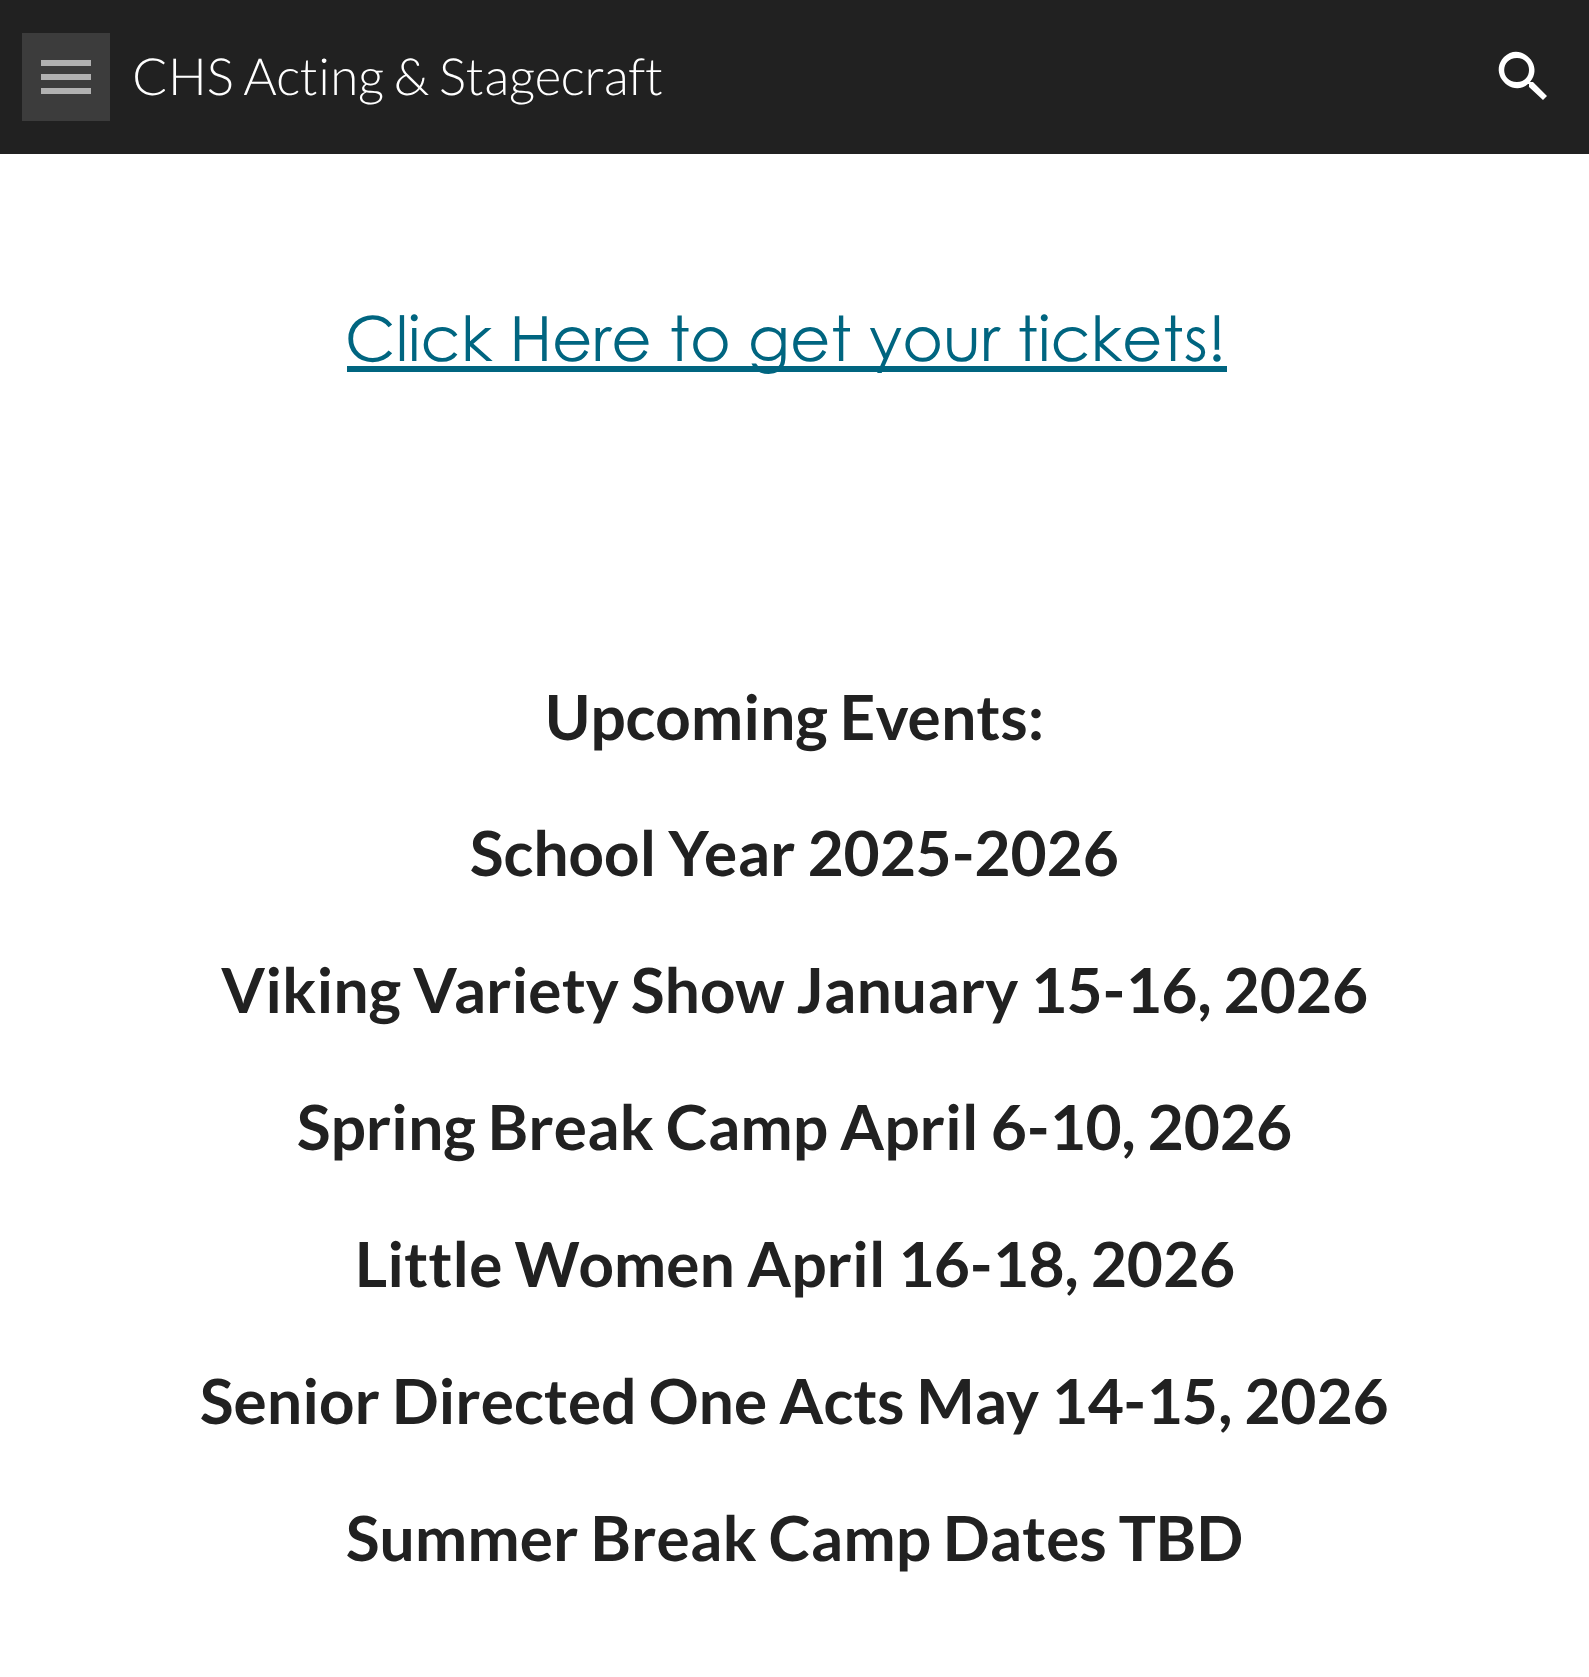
async function draw(canvas) {
  canvas.width = 1589
  canvas.height = 1677
  const ctx = canvas.getContext('2d')
  ctx.miterLimit = 4
  ctx.fontKerning = 'normal'

  ctx.fillStyle = '#fff'
  ctx.fillRect(0, 0, 1589, 1677)
  ctx.fillStyle = '#212121'
  ctx.fillRect(0, 0, 1589, 154)
  ctx.fillStyle = '#3c3c3c'
  ctx.fillRect(22, 33, 88, 88)
  ctx.fillStyle = '#b1b1b1'
  ctx.fillRect(41, 60, 50, 6)
  ctx.fillRect(41, 74, 50, 6)
  ctx.fillRect(41, 88, 50, 6)
  ctx.font = '300 51.25px Lato'
  ctx.fillStyle = '#fff'
  ctx.fillText('CHS Acting & Stagecraft', 132, 95)
  ctx.beginPath()
  ctx.moveTo(1533, 82)
  ctx.lineTo(1531, 82)
  ctx.lineTo(1530, 82)
  ctx.bezierCurveTo(1545, 65, 1520, 41, 1504, 57)
  ctx.bezierCurveTo(1488, 74, 1512, 98, 1528, 84)
  ctx.lineTo(1529, 84)
  ctx.lineTo(1529, 87)
  ctx.lineTo(1543, 100)
  ctx.lineTo(1547, 96)
  ctx.closePath()
  ctx.moveTo(1517, 82)
  ctx.bezierCurveTo(1500, 82, 1500, 58, 1517, 58)
  ctx.bezierCurveTo(1533, 58, 1533, 82, 1517, 82)
  ctx.closePath()
  ctx.fill()
  ctx.fillStyle = '#006580'
  ctx.fillRect(347, 366, 880, 6)
  ctx.font = '62.3px Century Gothic'
  ctx.fillText('Click Here to get your tickets!', 345, 361)
  ctx.font = 'bold 62.3px Lato'
  ctx.fillStyle = '#212121'
  ctx.fillText('Upcoming Events:', 545, 740)
  ctx.fillText('School Year 2025-2026', 470, 876)
  ctx.fillText('Viking Variety Show January 15-16, 2026', 221, 1013)
  ctx.fillText('Spring Break Camp April 6-10, 2026', 297, 1150)
  ctx.fillText('Little Women April 16-18, 2026', 355, 1287)
  ctx.fillText('Senior Directed One Acts May 14-15, 2026', 200, 1424)
  ctx.fillText('Summer Break Camp Dates TBD', 346, 1561)
}

draw(document.querySelector('canvas'))
